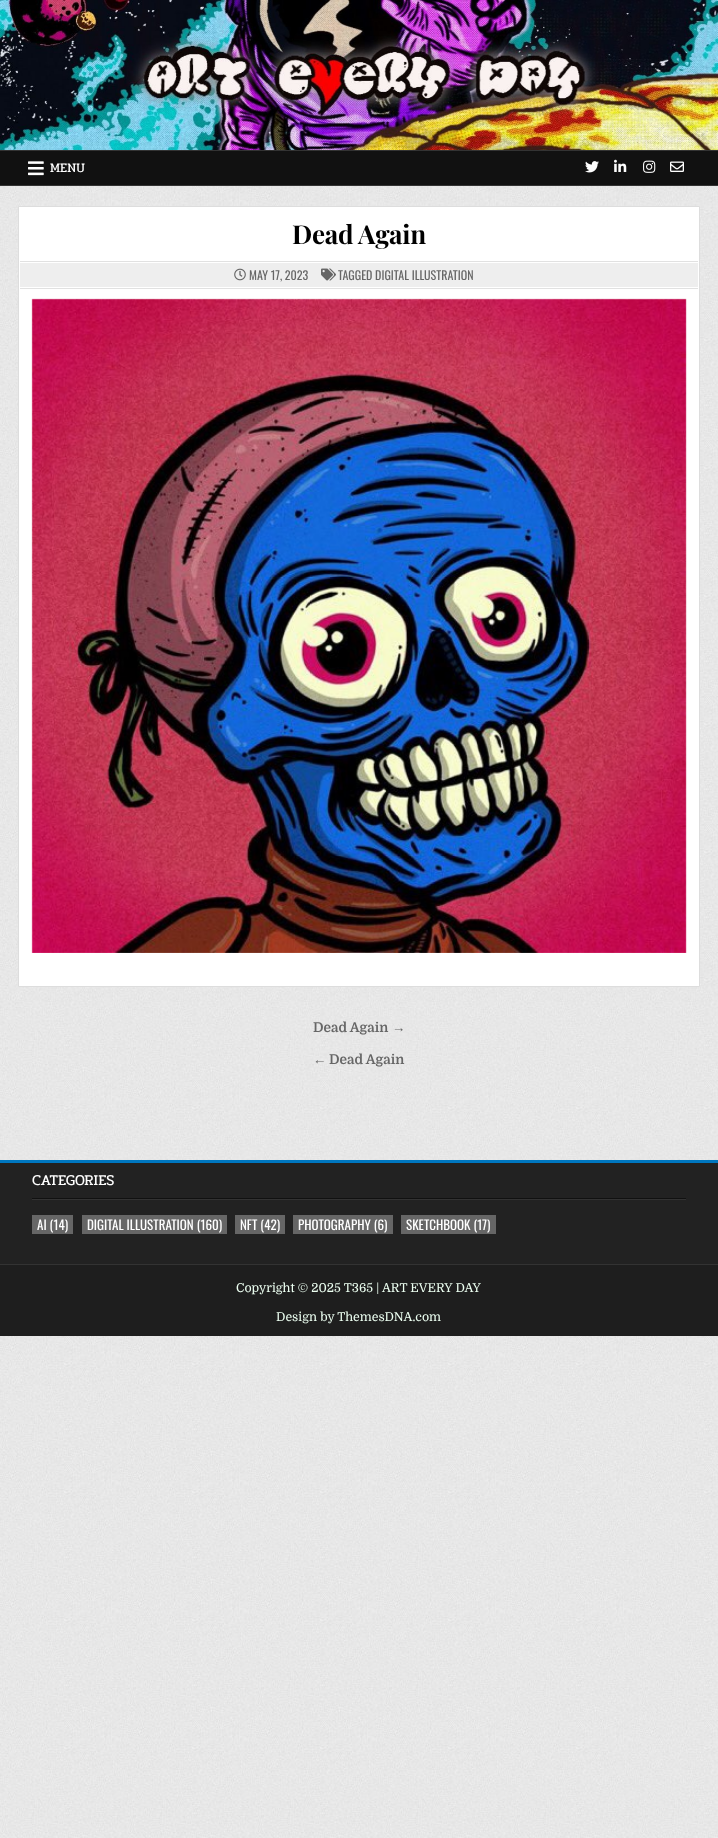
async function draw(canvas) {
  canvas.width = 718
  canvas.height = 1838
  const ctx = canvas.getContext('2d')
  ctx.miterLimit = 4
  ctx.fontKerning = 'normal'
  async function loadImage(src) {
    const img = new Image()
    img.src = src
    await img.decode()
    return img
  }

  ctx.fillStyle = '#fff'
  ctx.fillRect(0, 0, 718, 1838)
  ctx.drawImage(await loadImage('image0.png'), 0, 186, 718, 1652)
  ctx.drawImage(await loadImage('image1.png'), 0, 0, 718, 150)
  ctx.fillStyle = '#111'
  ctx.fillRect(0, 151, 718, 34)
  ctx.fillStyle = '#333'
  ctx.fillRect(0, 150, 718, 1)
  ctx.fillRect(0, 185, 718, 1)
  ctx.drawImage(await loadImage('image2.png'), 28, 161, 16, 15)
  ctx.font = '13px Pridi'
  ctx.fillStyle = '#fff'
  ctx.fillText('MENU', 50, 172)
  ctx.drawImage(await loadImage('image3.png'), 585, 161, 14, 12)
  ctx.drawImage(await loadImage('image4.png'), 614, 159, 13, 13)
  ctx.drawImage(await loadImage('image5.png'), 643, 160, 13, 13)
  ctx.drawImage(await loadImage('image6.png'), 670, 161, 14, 11)
  ctx.beginPath()
  ctx.rect(18.5, 206.5, 681, 780)
  ctx.fill()
  ctx.strokeStyle = '#ddd'
  ctx.stroke()
  ctx.letterSpacing = '-0.25px'
  ctx.font = 'bold 26px Playfair Display'
  ctx.fillStyle = '#000'
  ctx.fillText('Dead Again', 292, 244)
  ctx.fillStyle = '#eee'
  ctx.fillRect(20, 263, 678, 24)
  ctx.fillStyle = '#e1e1e1'
  ctx.fillRect(20, 261, 678, 1)
  ctx.fillRect(20, 288, 678, 1)
  ctx.drawImage(await loadImage('image7.png'), 234, 268, 12, 13)
  ctx.letterSpacing = '0px'
  ctx.font = '12px Oswald'
  ctx.fillStyle = '#666'
  ctx.fillText('MAY 17, 2023', 249, 280)
  ctx.drawImage(await loadImage('image8.png'), 321, 268, 15, 13)
  ctx.fillText('TAGGED DIGITAL ILLUSTRATION', 338, 280)
  ctx.drawImage(await loadImage('image9.png'), 31, 298, 656, 655)
  ctx.font = 'bold 13.5px Domine'
  ctx.fillText('Dead Again', 313, 1032)
  ctx.font = 'bold 13.5px Liberation Sans'
  ctx.fillText('→', 392, 1032)
  ctx.fillText('←', 313, 1064)
  ctx.font = 'bold 13.5px Domine'
  ctx.fillText('Dead Again', 329, 1064)
  ctx.fillStyle = '#222'
  ctx.fillRect(0, 1163, 718, 101)
  ctx.fillStyle = '#0077c0'
  ctx.fillRect(0, 1160, 718, 3)
  ctx.fillStyle = '#333'
  ctx.fillRect(32, 1199, 654, 1)
  ctx.fillStyle = '#111'
  ctx.fillRect(32, 1198, 654, 1)
  ctx.font = '15px Pridi'
  ctx.fillStyle = '#fff'
  ctx.fillText('CATEGORIES', 32, 1185)
  ctx.fillStyle = '#666'
  ctx.fillRect(32, 1215, 41, 19)
  ctx.font = '13px Oswald'
  ctx.fillStyle = '#fff'
  ctx.fillText('AI (14)', 37, 1230)
  ctx.fillStyle = '#666'
  ctx.fillRect(82, 1215, 145, 19)
  ctx.fillStyle = '#fff'
  ctx.fillText('DIGITAL ILLUSTRATION (160)', 87, 1230)
  ctx.fillStyle = '#666'
  ctx.fillRect(235, 1215, 50, 19)
  ctx.fillStyle = '#fff'
  ctx.fillText('NFT (42)', 240, 1230)
  ctx.fillStyle = '#666'
  ctx.fillRect(293, 1215, 100, 19)
  ctx.fillStyle = '#fff'
  ctx.fillText('PHOTOGRAPHY (6)', 298, 1230)
  ctx.fillStyle = '#666'
  ctx.fillRect(401, 1215, 95, 19)
  ctx.fillStyle = '#fff'
  ctx.fillText('SKETCHBOOK (17)', 406, 1230)
  ctx.fillStyle = '#1e1e1e'
  ctx.fillRect(0, 1265, 718, 71)
  ctx.fillStyle = '#333'
  ctx.fillRect(0, 1264, 718, 1)
  ctx.font = '12.3px Domine'
  ctx.fillStyle = '#ecfff1'
  ctx.fillText('Copyright © 2025 T365 | ART EVERY DAY', 236, 1292)
  ctx.fillText('Design by ThemesDNA.com', 276, 1321)
}

draw(document.querySelector('canvas'))
